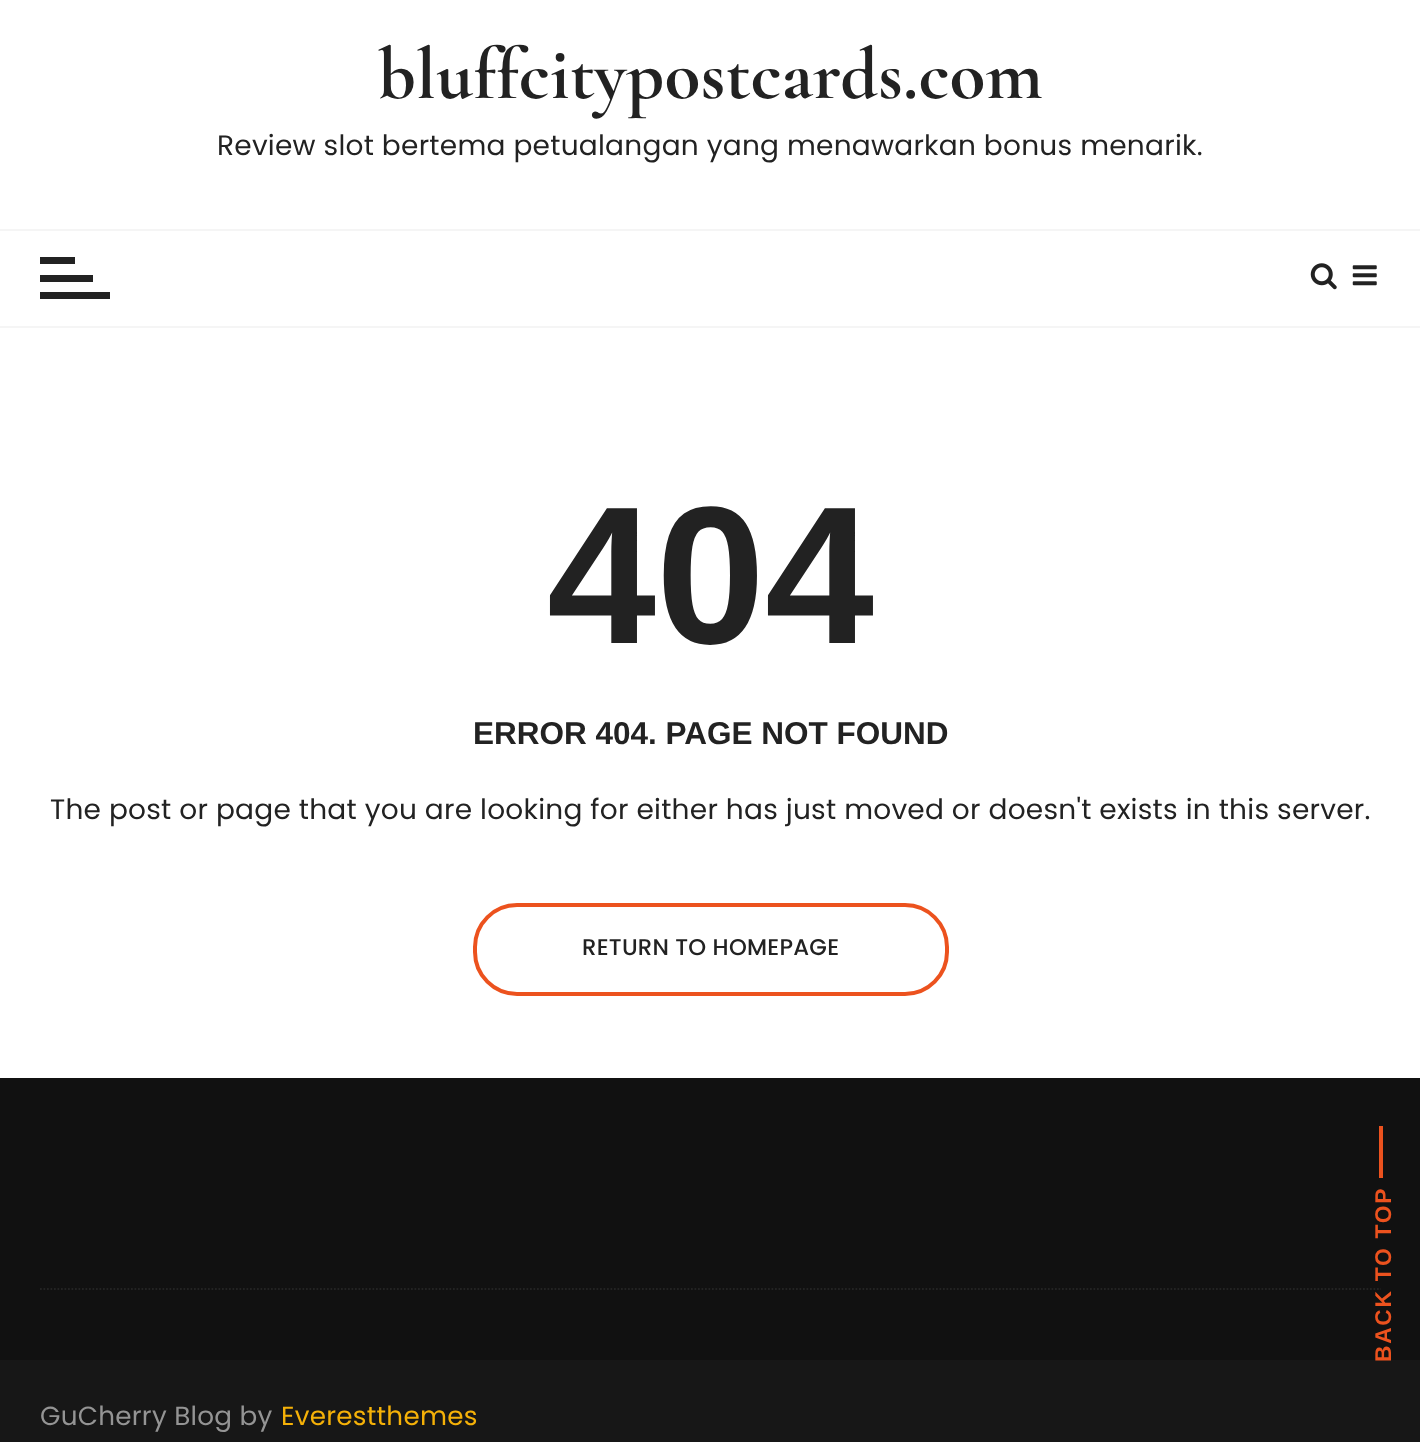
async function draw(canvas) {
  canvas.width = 1420
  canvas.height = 1442
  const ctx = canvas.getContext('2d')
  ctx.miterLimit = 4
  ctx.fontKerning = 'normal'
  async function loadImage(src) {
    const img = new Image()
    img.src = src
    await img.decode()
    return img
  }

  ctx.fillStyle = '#fff'
  ctx.fillRect(0, 0, 1420, 1442)
  ctx.letterSpacing = '0.25px'
  ctx.font = 'bold 73.5px Cormorant Garamond'
  ctx.fillStyle = '#222'
  ctx.fillText('bluffcitypostcards.com', 378, 98)
  ctx.font = '28px Poppins'
  ctx.fillText('Review slot bertema petualangan yang menawarkan bonus menarik.', 217, 155)
  ctx.fillStyle = '#f5f5f5'
  ctx.fillRect(0, 229, 1420, 2)
  ctx.fillRect(0, 326, 1420, 2)
  ctx.fillStyle = '#222'
  ctx.fillRect(40, 257, 35, 7)
  ctx.fillRect(40, 275, 53, 7)
  ctx.fillRect(40, 292, 70, 7)
  ctx.drawImage(await loadImage('image0.png'), 1310, 263, 27, 27)
  ctx.drawImage(await loadImage('image1.png'), 1352, 265, 25, 21)
  ctx.letterSpacing = '0px'
  ctx.font = 'bold 196px Liberation Sans'
  ctx.fillText('404', 547, 643)
  ctx.font = 'bold 31.5px Liberation Sans'
  ctx.fillText('ERROR 404. PAGE NOT FOUND', 473, 744)
  ctx.letterSpacing = '0.25px'
  ctx.font = '28px Poppins'
  ctx.fillText('The post or page that you are looking for either has just moved or doesn\'t exists in this server.', 50, 819)
  ctx.beginPath()
  ctx.roundRect(475, 905, 472, 89, 42)
  ctx.strokeStyle = '#ec521e'
  ctx.lineWidth = 4
  ctx.stroke()
  ctx.font = '500 22.75px Poppins'
  ctx.fillText('RETURN TO HOMEPAGE', 582, 955)
  ctx.fillStyle = '#111'
  ctx.fillRect(0, 1078, 1420, 282)
  ctx.fillStyle = '#ec521e'
  ctx.fillRect(1379, 1126, 4, 52)
  ctx.beginPath()
  ctx.moveTo(40, 1289)
  ctx.lineTo(1381, 1289)
  ctx.strokeStyle = '#232323'
  ctx.lineWidth = 1.8
  ctx.setLineDash([1.75, 1.75])
  ctx.stroke()
  ctx.fillStyle = '#171717'
  ctx.fillRect(0, 1360, 1420, 82)
  ctx.letterSpacing = '1.75px'
  ctx.font = 'bold 22.75px Liberation Sans'
  ctx.fillStyle = '#ec521e'
  ctx.save()
  ctx.translate(1391, 1362)
  ctx.rotate(-90 * Math.PI / 180)
  ctx.fillText('BACK TO TOP', 0, 0)
  ctx.restore()
  ctx.letterSpacing = '0.25px'
  ctx.font = '26.25px Poppins'
  ctx.fillStyle = '#949494'
  ctx.fillText('GuCherry Blog by', 40, 1425)
  ctx.fillStyle = '#f5b108'
  ctx.fillText('Everestthemes', 281, 1425)
}

draw(document.querySelector('canvas'))
